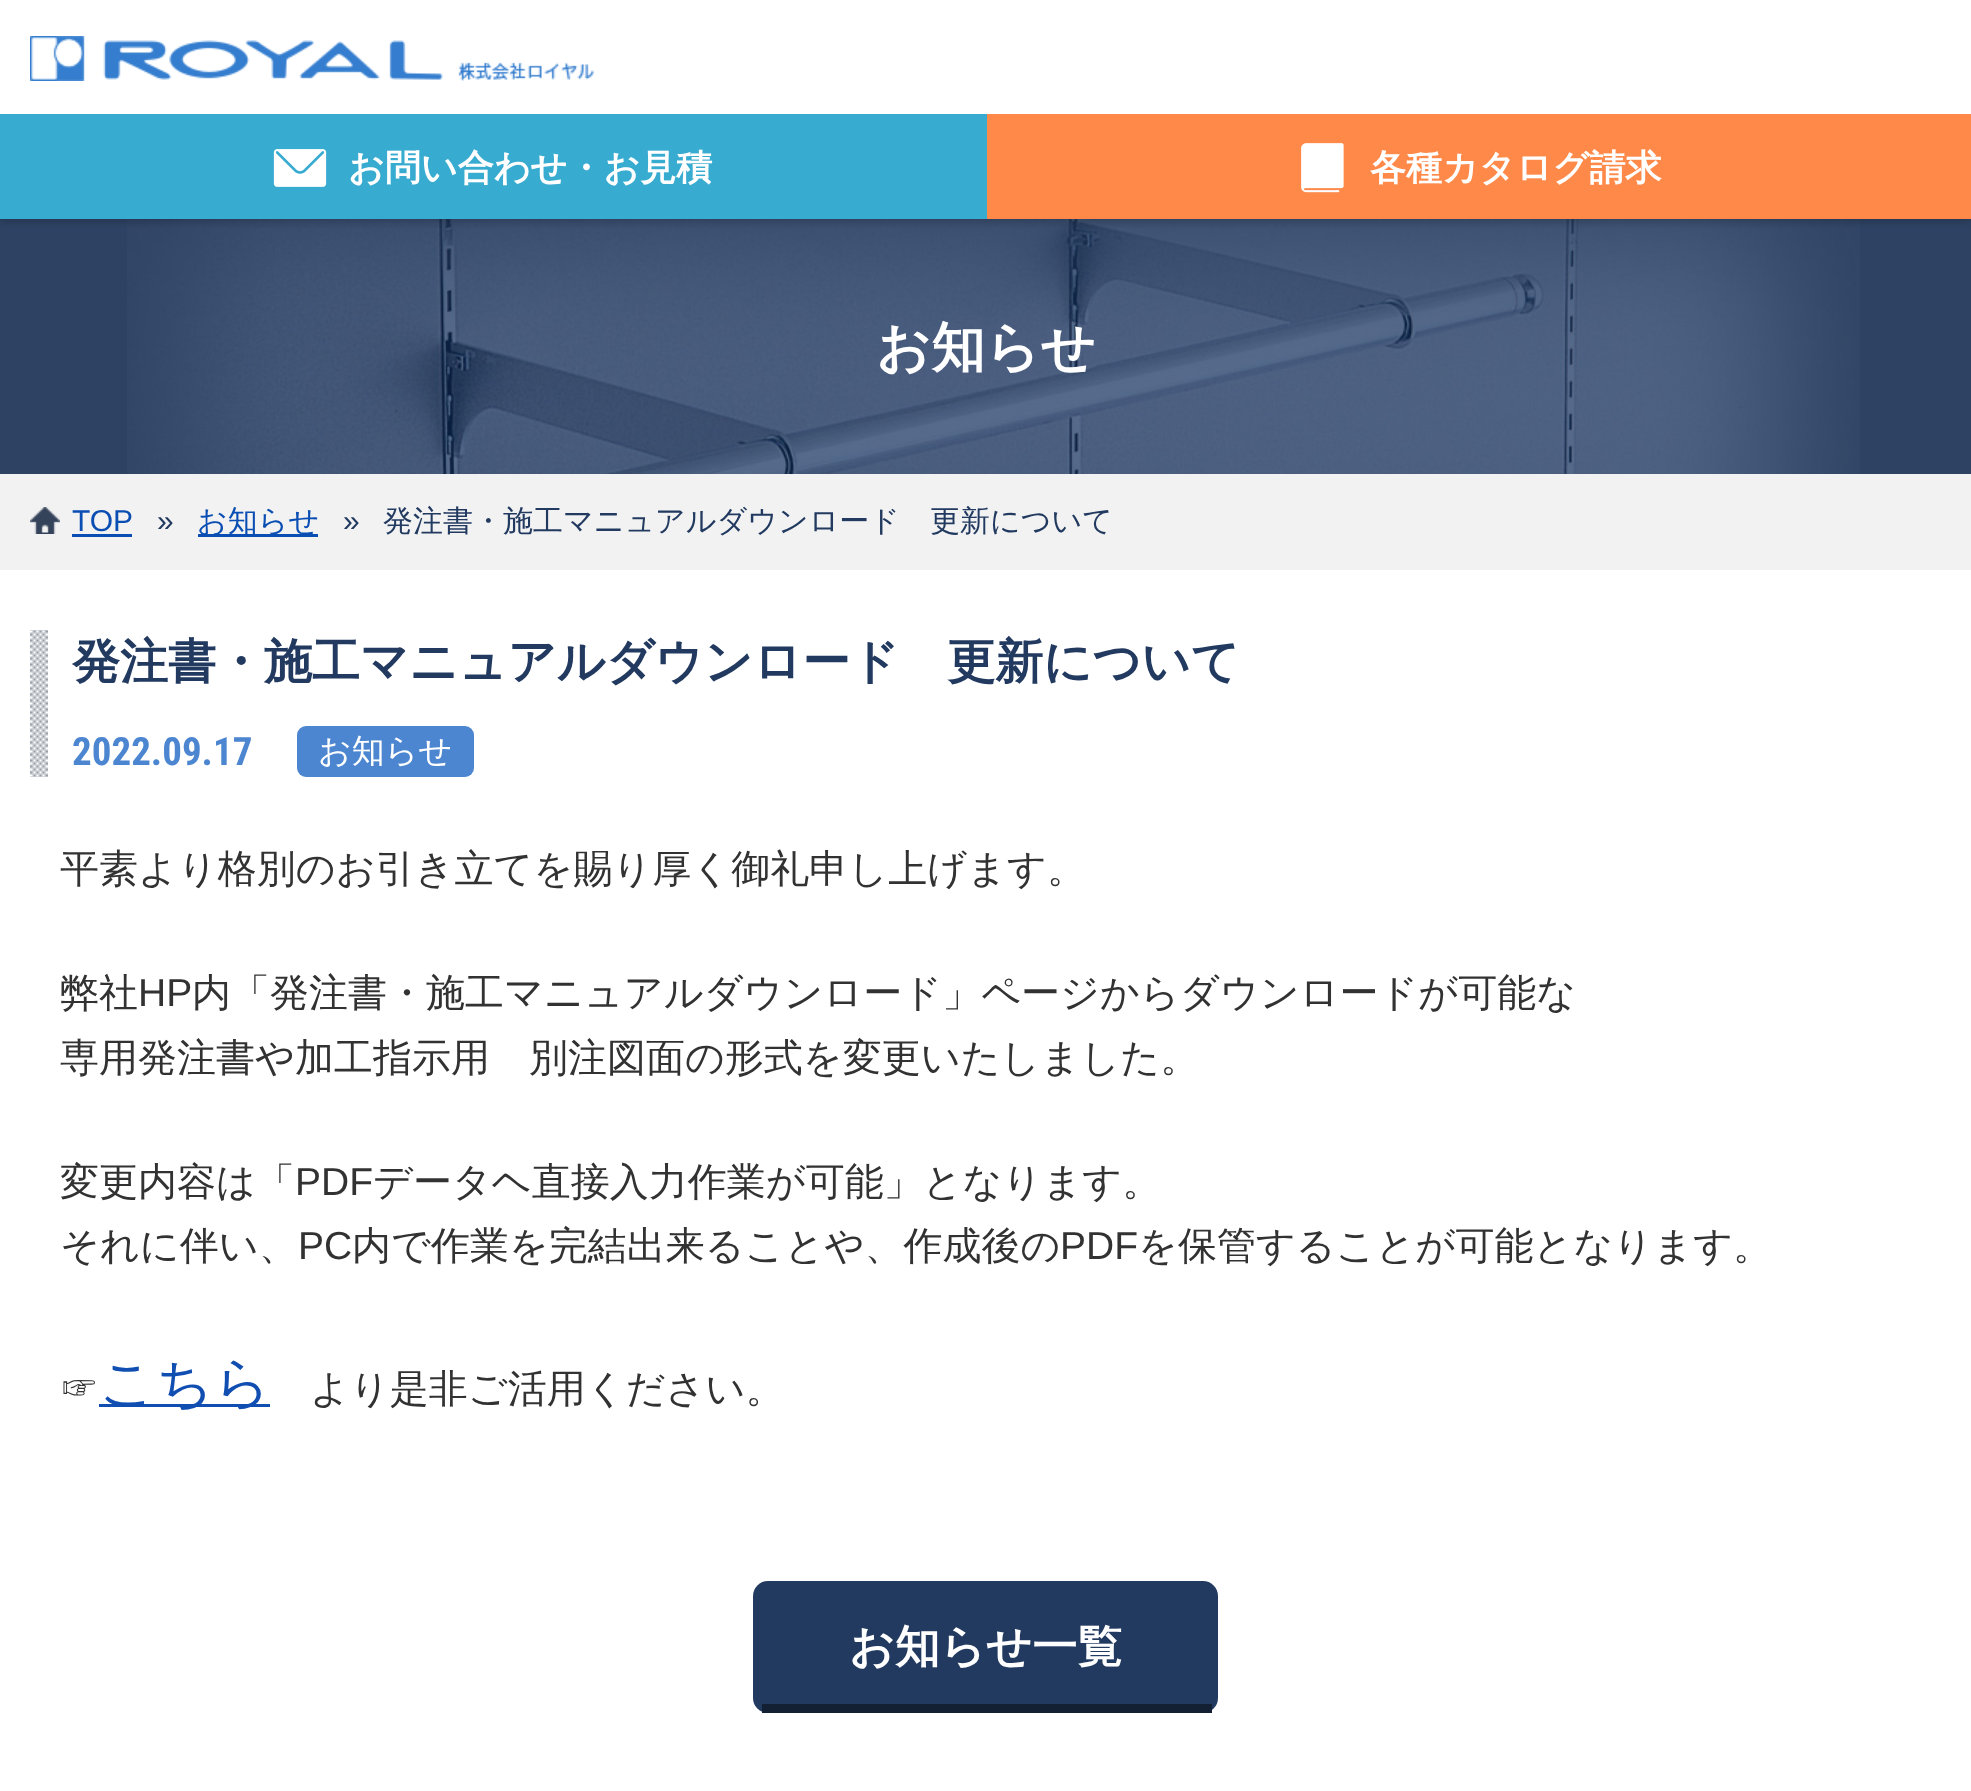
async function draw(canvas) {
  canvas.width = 1971
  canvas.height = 1791
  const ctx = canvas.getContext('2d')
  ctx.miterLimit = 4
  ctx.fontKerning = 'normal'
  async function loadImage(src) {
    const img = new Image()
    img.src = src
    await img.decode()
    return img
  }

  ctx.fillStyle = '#fff'
  ctx.fillRect(0, 0, 1971, 1791)
  ctx.fillStyle = '#2e4364'
  ctx.fillRect(0, 219, 1971, 255)
  ctx.drawImage(await loadImage('image3.png'), 127, 219, 1733, 255)
  ctx.save()
  ctx.beginPath()
  ctx.rect(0, 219, 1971, 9)
  ctx.clip()
  ctx.fillStyle = '#00000033'
  ctx.filter = 'blur(4.5px)'
  ctx.beginPath()
  ctx.rect(0, 3, 1971, 219)
  ctx.fill()
  ctx.filter = 'none'
  ctx.restore()
  ctx.drawImage(await loadImage('image0.png'), 30, 36, 564, 45)
  ctx.fillStyle = '#38abd0'
  ctx.fillRect(0, 114, 987, 105)
  ctx.drawImage(await loadImage('image1.png'), 273, 149, 54, 38)
  ctx.font = 'bold 36px WenQuanYi Zen Hei'
  ctx.fillStyle = '#fff'
  ctx.fillText('お問い合わせ・お見積', 348, 180)
  ctx.fillStyle = '#fe8949'
  ctx.fillRect(987, 114, 984, 105)
  ctx.drawImage(await loadImage('image2.png'), 1301, 143, 43, 50)
  ctx.fillStyle = '#fff'
  ctx.fillText('各種カタログ請求', 1370, 180)
  ctx.font = 'bold 54px WenQuanYi Zen Hei'
  ctx.fillText('お知らせ', 876, 366)
  ctx.fillStyle = '#f2f2f2'
  ctx.fillRect(0, 474, 1971, 96)
  ctx.drawImage(await loadImage('image4.png'), 30, 507, 30, 27)
  ctx.font = '30px Liberation Sans'
  ctx.fillStyle = '#0a4eb3'
  ctx.fillText('TOP', 72, 531)
  ctx.fillRect(72, 534, 60, 3)
  ctx.fillStyle = '#223a60'
  ctx.fillText('»', 157, 531)
  ctx.fillStyle = '#0a4eb3'
  ctx.fillRect(198, 534, 120, 3)
  ctx.font = '500 30px WenQuanYi Zen Hei'
  ctx.fillText('お知らせ', 197, 531)
  ctx.font = '30px Liberation Sans'
  ctx.fillStyle = '#223a60'
  ctx.fillText('»', 343, 531)
  ctx.font = '500 30px WenQuanYi Zen Hei'
  ctx.fillText('発注書・施工マニュアルダウンロード　更新について', 383, 531)
  ctx.drawImage(await loadImage('image5.png'), 30, 630, 18, 147)
  ctx.font = 'bold 48px WenQuanYi Zen Hei'
  ctx.fillText('発注書・施工マニュアルダウンロード　更新について', 72, 678)
  ctx.font = 'bold 39px Roboto Condensed'
  ctx.fillStyle = '#4d86d0'
  ctx.fillText('2022.09.17', 72, 765)
  ctx.beginPath()
  ctx.roundRect(297, 726, 177, 51, 9)
  ctx.fill()
  ctx.font = '500 33px WenQuanYi Zen Hei'
  ctx.fillStyle = '#fff'
  ctx.fillText('お知らせ', 318, 762)
  ctx.font = '500 39px WenQuanYi Zen Hei'
  ctx.fillStyle = '#323232'
  ctx.fillText('平素より格別のお引き立てを賜り厚く御礼申し上げます。', 60, 882)
  ctx.fillText('弊社', 60, 1006)
  ctx.font = '39px Liberation Sans'
  ctx.fillText('HP', 138, 1006)
  ctx.font = '500 39px WenQuanYi Zen Hei'
  ctx.fillText('内「発注書・施工マニュアルダウンロード」ページからダウンロードが可能な', 192, 1006)
  ctx.fillText('専用発注書や加工指示用　別注図面の形式を変更いたしました。', 60, 1071)
  ctx.fillText('変更内容は「', 60, 1195)
  ctx.font = '39px Liberation Sans'
  ctx.fillText('PDF', 295, 1195)
  ctx.font = '500 39px WenQuanYi Zen Hei'
  ctx.fillText('データヘ直接入力作業が可能」となります。', 373, 1195)
  ctx.fillText('それに伴い、', 60, 1259)
  ctx.font = '39px Liberation Sans'
  ctx.fillText('PC', 298, 1259)
  ctx.font = '500 39px WenQuanYi Zen Hei'
  ctx.fillText('内で作業を完結出来ることや、作成後の', 352, 1259)
  ctx.font = '39px Liberation Sans'
  ctx.fillText('PDF', 1060, 1259)
  ctx.font = '500 39px WenQuanYi Zen Hei'
  ctx.fillText('を保管することが可能となります。', 1138, 1259)
  ctx.fillText('☞', 60, 1402)
  ctx.fillStyle = '#104eb1'
  ctx.fillRect(99, 1404, 171, 3)
  ctx.font = '500 56px WenQuanYi Zen Hei'
  ctx.fillText('こちら', 99, 1402)
  ctx.font = '500 39px WenQuanYi Zen Hei'
  ctx.fillStyle = '#323232'
  ctx.fillText('より是非ご活用ください。', 310, 1402)
  ctx.fillStyle = '#223a60'
  ctx.beginPath()
  ctx.roundRect(753, 1581, 465, 132, 15)
  ctx.fill()
  ctx.fillStyle = '#131f33'
  ctx.fillRect(762, 1704, 450, 9)
  ctx.font = 'bold 45px WenQuanYi Zen Hei'
  ctx.fillStyle = '#fff'
  ctx.fillText('お知らせ一覧', 849, 1662)
}

draw(document.querySelector('canvas'))
